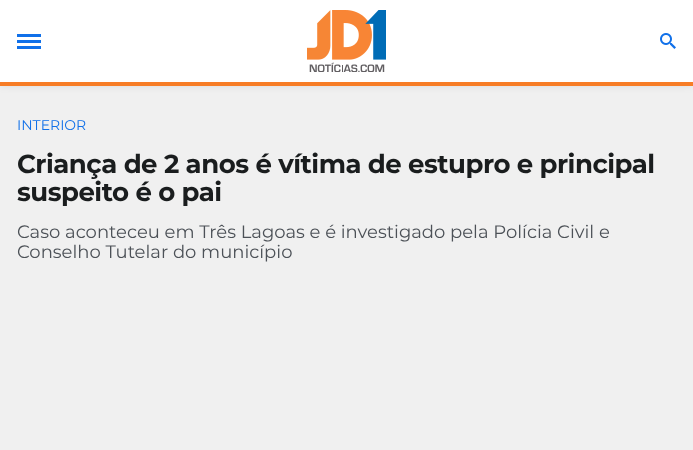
async function draw(canvas) {
  canvas.width = 693
  canvas.height = 450
  const ctx = canvas.getContext('2d')
  ctx.miterLimit = 4
  ctx.fontKerning = 'normal'
  async function loadImage(src) {
    const img = new Image()
    img.src = src
    await img.decode()
    return img
  }

  ctx.fillStyle = '#f0f0f0'
  ctx.fillRect(0, 0, 693, 450)
  ctx.fillStyle = '#00000021'
  ctx.filter = 'blur(5px)'
  ctx.beginPath()
  ctx.rect(0, 2, 693, 82)
  ctx.fill()
  ctx.filter = 'none'
  ctx.fillStyle = '#fff'
  ctx.fillRect(0, 0, 693, 82)
  ctx.drawImage(await loadImage('image0.png'), 307, 10, 79, 62)
  ctx.fillStyle = '#1070e9'
  ctx.fillRect(17, 40, 24, 3)
  ctx.fillRect(17, 34, 24, 3)
  ctx.fillRect(17, 46, 24, 3)
  ctx.drawImage(await loadImage('image1.png'), 660, 33, 16, 16)
  ctx.fillStyle = '#f77d26'
  ctx.fillRect(0, 82, 693, 4)
  ctx.font = '14px Montserrat'
  ctx.fillStyle = '#1070e9'
  ctx.fillText('INTERIOR', 17, 130)
  ctx.letterSpacing = '-0.5px'
  ctx.font = 'bold 26px Montserrat'
  ctx.fillStyle = '#1a1d1e'
  ctx.fillText('Criança de 2 anos é vítima de estupro e principal', 17, 173)
  ctx.fillText('suspeito é o pai', 17, 201)
  ctx.letterSpacing = '0px'
  ctx.font = '18px Montserrat'
  ctx.fillStyle = '#4c5157'
  ctx.fillText('Caso aconteceu em Três Lagoas e é investigado pela Polícia Civil e', 17, 238)
  ctx.fillText('Conselho Tutelar do município', 17, 258)
}

draw(document.querySelector('canvas'))
